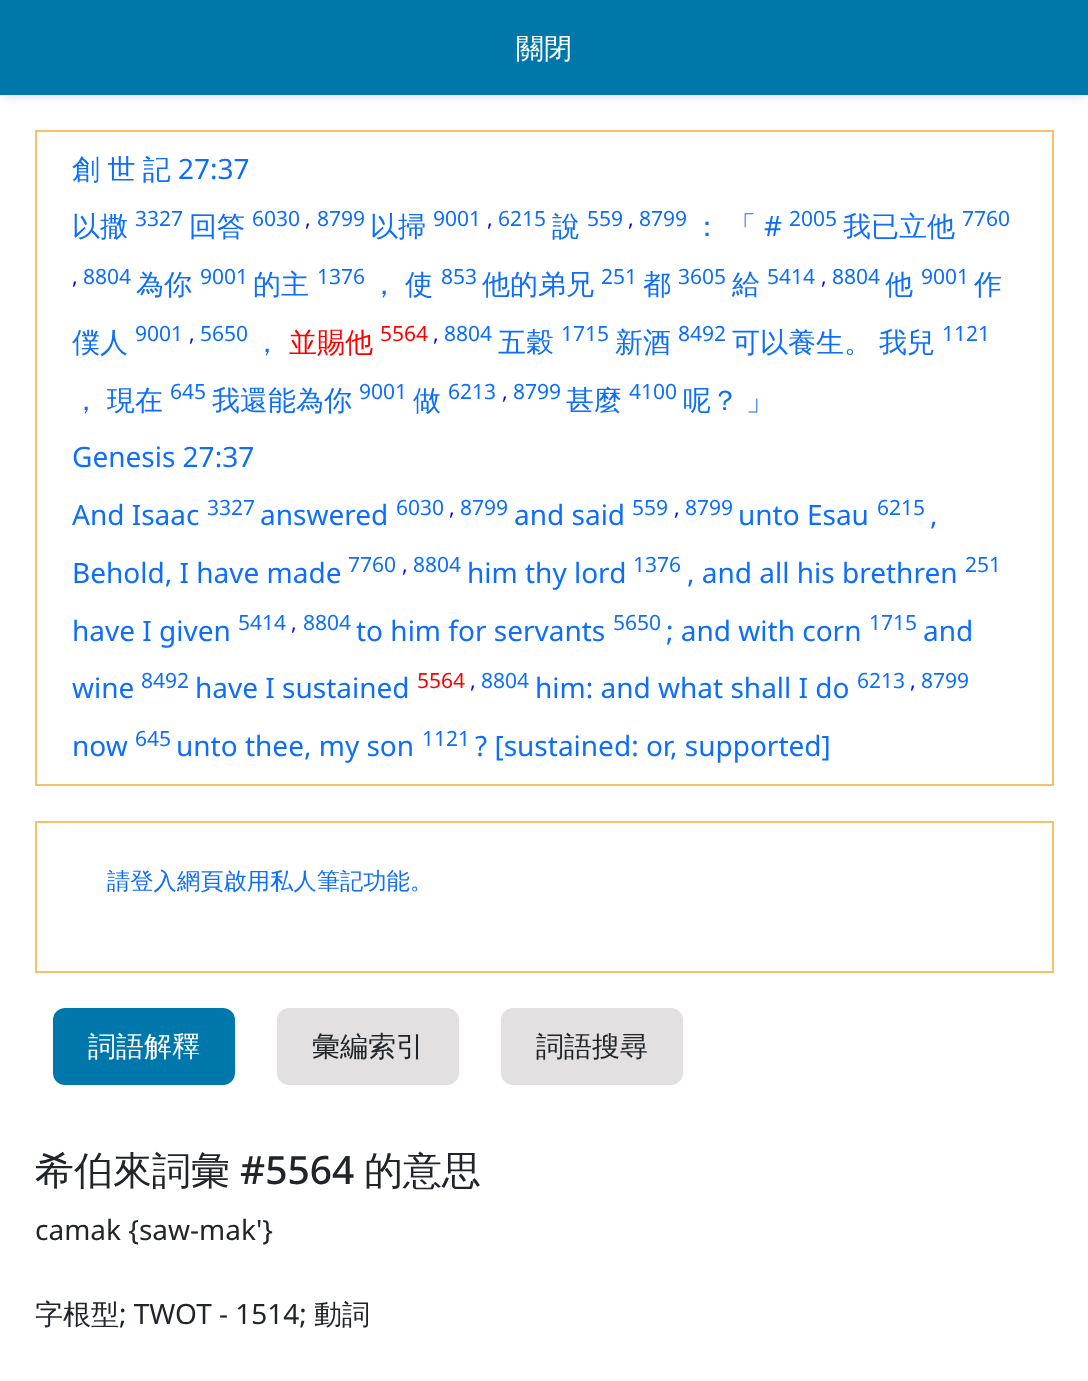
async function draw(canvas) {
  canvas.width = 1088
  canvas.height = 1381
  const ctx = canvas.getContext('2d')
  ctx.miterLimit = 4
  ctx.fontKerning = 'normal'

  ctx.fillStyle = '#fff'
  ctx.fillRect(0, 0, 1088, 1381)
  ctx.fillStyle = '#00219b1f'
  ctx.filter = 'blur(4.5px)'
  ctx.beginPath()
  ctx.rect(4, 11, 1081, 87)
  ctx.fill()
  ctx.filter = 'none'
  ctx.fillStyle = '#0077ab'
  ctx.fillRect(0, 0, 1088, 95)
  ctx.font = '500 28px WenQuanYi Zen Hei'
  ctx.fillStyle = '#fff'
  ctx.fillText('關閉', 516, 58)
  ctx.strokeStyle = '#f8c166'
  ctx.lineWidth = 2
  ctx.strokeRect(36, 131, 1017, 654)
  ctx.wordSpacing = '-1px'
  ctx.fillStyle = '#0d6efd'
  ctx.fillText('創 世 記', 72, 179)
  ctx.wordSpacing = '0px'
  ctx.font = '28px Noto Sans'
  ctx.fillText('27:37', 178, 179)
  ctx.font = '500 28px WenQuanYi Zen Hei'
  ctx.fillText('以撒', 72, 236)
  ctx.font = '21px Noto Sans'
  ctx.fillText('3327', 135, 226)
  ctx.font = '500 28px WenQuanYi Zen Hei'
  ctx.fillText('回答', 189, 236)
  ctx.font = '21px Noto Sans'
  ctx.fillText('6030', 252, 226)
  ctx.fillStyle = '#00f'
  ctx.fillText(',', 305, 226)
  ctx.fillStyle = '#0d6efd'
  ctx.fillText('8799', 317, 226)
  ctx.font = '500 28px WenQuanYi Zen Hei'
  ctx.fillText('以掃', 370, 236)
  ctx.font = '21px Noto Sans'
  ctx.fillText('9001', 433, 226)
  ctx.fillStyle = '#00f'
  ctx.fillText(',', 487, 226)
  ctx.fillStyle = '#0d6efd'
  ctx.fillText('6215', 498, 226)
  ctx.font = '500 28px WenQuanYi Zen Hei'
  ctx.fillText('說', 552, 236)
  ctx.font = '21px Noto Sans'
  ctx.fillText('559', 587, 226)
  ctx.fillStyle = '#00f'
  ctx.fillText(',', 628, 226)
  ctx.fillStyle = '#0d6efd'
  ctx.fillText('8799', 639, 226)
  ctx.font = '500 28px WenQuanYi Zen Hei'
  ctx.fillText('：', 693, 236)
  ctx.fillText('「', 728, 236)
  ctx.font = '28px Noto Sans'
  ctx.fillText('#', 764, 236)
  ctx.font = '21px Noto Sans'
  ctx.fillText('2005', 789, 226)
  ctx.font = '500 28px WenQuanYi Zen Hei'
  ctx.fillText('我已立他', 843, 236)
  ctx.font = '21px Noto Sans'
  ctx.fillText('7760', 962, 226)
  ctx.fillStyle = '#00f'
  ctx.fillText(',', 72, 284)
  ctx.fillStyle = '#0d6efd'
  ctx.fillText('8804', 83, 284)
  ctx.font = '500 28px WenQuanYi Zen Hei'
  ctx.fillText('為你', 136, 294)
  ctx.font = '21px Noto Sans'
  ctx.fillText('9001', 200, 284)
  ctx.font = '500 28px WenQuanYi Zen Hei'
  ctx.fillText('的主', 253, 294)
  ctx.font = '21px Noto Sans'
  ctx.fillText('1376', 317, 284)
  ctx.font = '500 28px WenQuanYi Zen Hei'
  ctx.fillText('使', 405, 294)
  ctx.font = '21px Noto Sans'
  ctx.fillText('853', 441, 284)
  ctx.font = '500 28px WenQuanYi Zen Hei'
  ctx.fillText('他的弟兄', 482, 294)
  ctx.font = '21px Noto Sans'
  ctx.fillText('251', 601, 284)
  ctx.font = '500 28px WenQuanYi Zen Hei'
  ctx.fillText('都', 643, 294)
  ctx.font = '21px Noto Sans'
  ctx.fillText('3605', 678, 284)
  ctx.font = '500 28px WenQuanYi Zen Hei'
  ctx.fillText('給', 732, 294)
  ctx.font = '21px Noto Sans'
  ctx.fillText('5414', 767, 284)
  ctx.fillStyle = '#00f'
  ctx.fillText(',', 821, 284)
  ctx.fillStyle = '#0d6efd'
  ctx.fillText('8804', 832, 284)
  ctx.font = '500 28px WenQuanYi Zen Hei'
  ctx.fillText('他', 885, 294)
  ctx.font = '21px Noto Sans'
  ctx.fillText('9001', 921, 284)
  ctx.font = '500 28px WenQuanYi Zen Hei'
  ctx.fillText('作', 974, 294)
  ctx.fillText('，', 370, 294)
  ctx.fillText('僕人', 72, 352)
  ctx.font = '21px Noto Sans'
  ctx.fillText('9001', 135, 341)
  ctx.fillStyle = '#00f'
  ctx.fillText(',', 189, 341)
  ctx.fillStyle = '#0d6efd'
  ctx.fillText('5650', 200, 341)
  ctx.font = '500 28px WenQuanYi Zen Hei'
  ctx.fillStyle = '#f00'
  ctx.fillText('並賜他', 289, 352)
  ctx.font = '21px Noto Sans'
  ctx.fillText('5564', 380, 341)
  ctx.fillStyle = '#00f'
  ctx.fillText(',', 433, 341)
  ctx.fillStyle = '#0d6efd'
  ctx.fillText('8804', 444, 341)
  ctx.font = '500 28px WenQuanYi Zen Hei'
  ctx.fillText('五穀', 498, 352)
  ctx.font = '21px Noto Sans'
  ctx.fillText('1715', 561, 341)
  ctx.font = '500 28px WenQuanYi Zen Hei'
  ctx.fillText('新酒', 615, 352)
  ctx.font = '21px Noto Sans'
  ctx.fillText('8492', 678, 341)
  ctx.font = '500 28px WenQuanYi Zen Hei'
  ctx.fillText('可以養生。', 732, 352)
  ctx.fillText('我兒', 879, 352)
  ctx.font = '21px Noto Sans'
  ctx.fillText('1121', 942, 341)
  ctx.font = '500 28px WenQuanYi Zen Hei'
  ctx.fillText('，', 253, 352)
  ctx.fillText('，', 72, 410)
  ctx.fillText('現在', 107, 410)
  ctx.font = '21px Noto Sans'
  ctx.fillText('645', 170, 399)
  ctx.font = '500 28px WenQuanYi Zen Hei'
  ctx.fillText('我還能為你', 212, 410)
  ctx.font = '21px Noto Sans'
  ctx.fillText('9001', 359, 399)
  ctx.font = '500 28px WenQuanYi Zen Hei'
  ctx.fillText('做', 413, 410)
  ctx.font = '21px Noto Sans'
  ctx.fillText('6213', 448, 399)
  ctx.fillStyle = '#00f'
  ctx.fillText(',', 502, 399)
  ctx.fillStyle = '#0d6efd'
  ctx.fillText('8799', 513, 399)
  ctx.font = '500 28px WenQuanYi Zen Hei'
  ctx.fillText('甚麼', 566, 410)
  ctx.font = '21px Noto Sans'
  ctx.fillText('4100', 629, 399)
  ctx.font = '500 28px WenQuanYi Zen Hei'
  ctx.fillText('呢？', 683, 410)
  ctx.fillText('」', 746, 410)
  ctx.font = '28px Noto Sans'
  ctx.fillText('Genesis 27:37', 72, 467)
  ctx.fillText('And Isaac', 72, 525)
  ctx.font = '21px Noto Sans'
  ctx.fillText('3327', 207, 515)
  ctx.font = '28px Noto Sans'
  ctx.fillText('answered', 260, 525)
  ctx.font = '21px Noto Sans'
  ctx.fillText('6030', 396, 515)
  ctx.fillStyle = '#00f'
  ctx.fillText(',', 449, 515)
  ctx.fillStyle = '#0d6efd'
  ctx.fillText('8799', 460, 515)
  ctx.font = '28px Noto Sans'
  ctx.fillText('and said', 514, 525)
  ctx.font = '21px Noto Sans'
  ctx.fillText('559', 632, 515)
  ctx.fillStyle = '#00f'
  ctx.fillText(',', 674, 515)
  ctx.fillStyle = '#0d6efd'
  ctx.fillText('8799', 685, 515)
  ctx.font = '28px Noto Sans'
  ctx.fillText('unto Esau', 738, 525)
  ctx.font = '21px Noto Sans'
  ctx.fillText('6215', 877, 515)
  ctx.font = '28px Noto Sans'
  ctx.fillText(',', 930, 525)
  ctx.fillText('Behold, I have made', 72, 583)
  ctx.font = '21px Noto Sans'
  ctx.fillText('7760', 348, 572)
  ctx.fillStyle = '#00f'
  ctx.fillText(',', 402, 572)
  ctx.fillStyle = '#0d6efd'
  ctx.fillText('8804', 413, 572)
  ctx.font = '28px Noto Sans'
  ctx.fillText('him thy lord', 467, 583)
  ctx.font = '21px Noto Sans'
  ctx.fillText('1376', 633, 572)
  ctx.font = '28px Noto Sans'
  ctx.fillText(', and all his brethren', 687, 583)
  ctx.font = '21px Noto Sans'
  ctx.fillText('251', 965, 572)
  ctx.font = '28px Noto Sans'
  ctx.fillText('have I given', 72, 641)
  ctx.font = '21px Noto Sans'
  ctx.fillText('5414', 238, 630)
  ctx.fillStyle = '#00f'
  ctx.fillText(',', 291, 630)
  ctx.fillStyle = '#0d6efd'
  ctx.fillText('8804', 303, 630)
  ctx.font = '28px Noto Sans'
  ctx.fillText('to him for servants', 356, 641)
  ctx.font = '21px Noto Sans'
  ctx.fillText('5650', 613, 630)
  ctx.font = '28px Noto Sans'
  ctx.fillText('; and with corn', 666, 641)
  ctx.font = '21px Noto Sans'
  ctx.fillText('1715', 869, 630)
  ctx.font = '28px Noto Sans'
  ctx.fillText('and', 923, 641)
  ctx.fillText('wine', 72, 698)
  ctx.font = '21px Noto Sans'
  ctx.fillText('8492', 141, 688)
  ctx.font = '28px Noto Sans'
  ctx.fillText('have I sustained', 195, 698)
  ctx.font = '21px Noto Sans'
  ctx.fillStyle = '#f00'
  ctx.fillText('5564', 417, 688)
  ctx.fillStyle = '#00f'
  ctx.fillText(',', 470, 688)
  ctx.fillStyle = '#0d6efd'
  ctx.fillText('8804', 481, 688)
  ctx.font = '28px Noto Sans'
  ctx.fillText('him: and what shall I do', 535, 698)
  ctx.font = '21px Noto Sans'
  ctx.fillText('6213', 857, 688)
  ctx.fillStyle = '#00f'
  ctx.fillText(',', 910, 688)
  ctx.fillStyle = '#0d6efd'
  ctx.fillText('8799', 921, 688)
  ctx.font = '28px Noto Sans'
  ctx.fillText('now', 72, 756)
  ctx.font = '21px Noto Sans'
  ctx.fillText('645', 135, 746)
  ctx.font = '28px Noto Sans'
  ctx.fillText('unto thee, my son', 176, 756)
  ctx.font = '21px Noto Sans'
  ctx.fillText('1121', 422, 746)
  ctx.font = '28px Noto Sans'
  ctx.fillText('? [sustained: or, supported]', 475, 756)
  ctx.strokeRect(36, 822, 1017, 150)
  ctx.font = '500 23.3px WenQuanYi Zen Hei'
  ctx.fillText('請登入網頁啟用私人筆記功能。', 107, 889)
  ctx.fillStyle = '#0077ab'
  ctx.beginPath()
  ctx.roundRect(53, 1008, 182, 77, 12)
  ctx.fill()
  ctx.font = '500 28px WenQuanYi Zen Hei'
  ctx.fillStyle = '#fff'
  ctx.fillText('詞語解釋', 88, 1056)
  ctx.fillStyle = '#e2e0e0'
  ctx.beginPath()
  ctx.roundRect(277, 1008, 182, 77, 12)
  ctx.fill()
  ctx.fillStyle = '#212529'
  ctx.fillText('彙編索引', 312, 1056)
  ctx.fillStyle = '#e2e0e0'
  ctx.beginPath()
  ctx.roundRect(501, 1008, 182, 77, 12)
  ctx.fill()
  ctx.fillStyle = '#212529'
  ctx.fillText('詞語搜尋', 536, 1056)
  ctx.font = '500 39px WenQuanYi Zen Hei'
  ctx.fillText('希伯來詞彙', 35, 1184)
  ctx.font = '500 39px Noto Sans'
  ctx.fillText('#5564', 240, 1184)
  ctx.font = '500 39px WenQuanYi Zen Hei'
  ctx.fillText('的意思', 364, 1184)
  ctx.font = '28px Noto Sans'
  ctx.fillText('camak {saw-mak\'}', 35, 1240)
  ctx.font = '500 28px WenQuanYi Zen Hei'
  ctx.fillText('字根型', 35, 1324)
  ctx.font = '28px Noto Sans'
  ctx.fillText('; TWOT - 1514;', 119, 1324)
  ctx.font = '500 28px WenQuanYi Zen Hei'
  ctx.fillText('動詞', 314, 1324)
}

draw(document.querySelector('canvas'))
